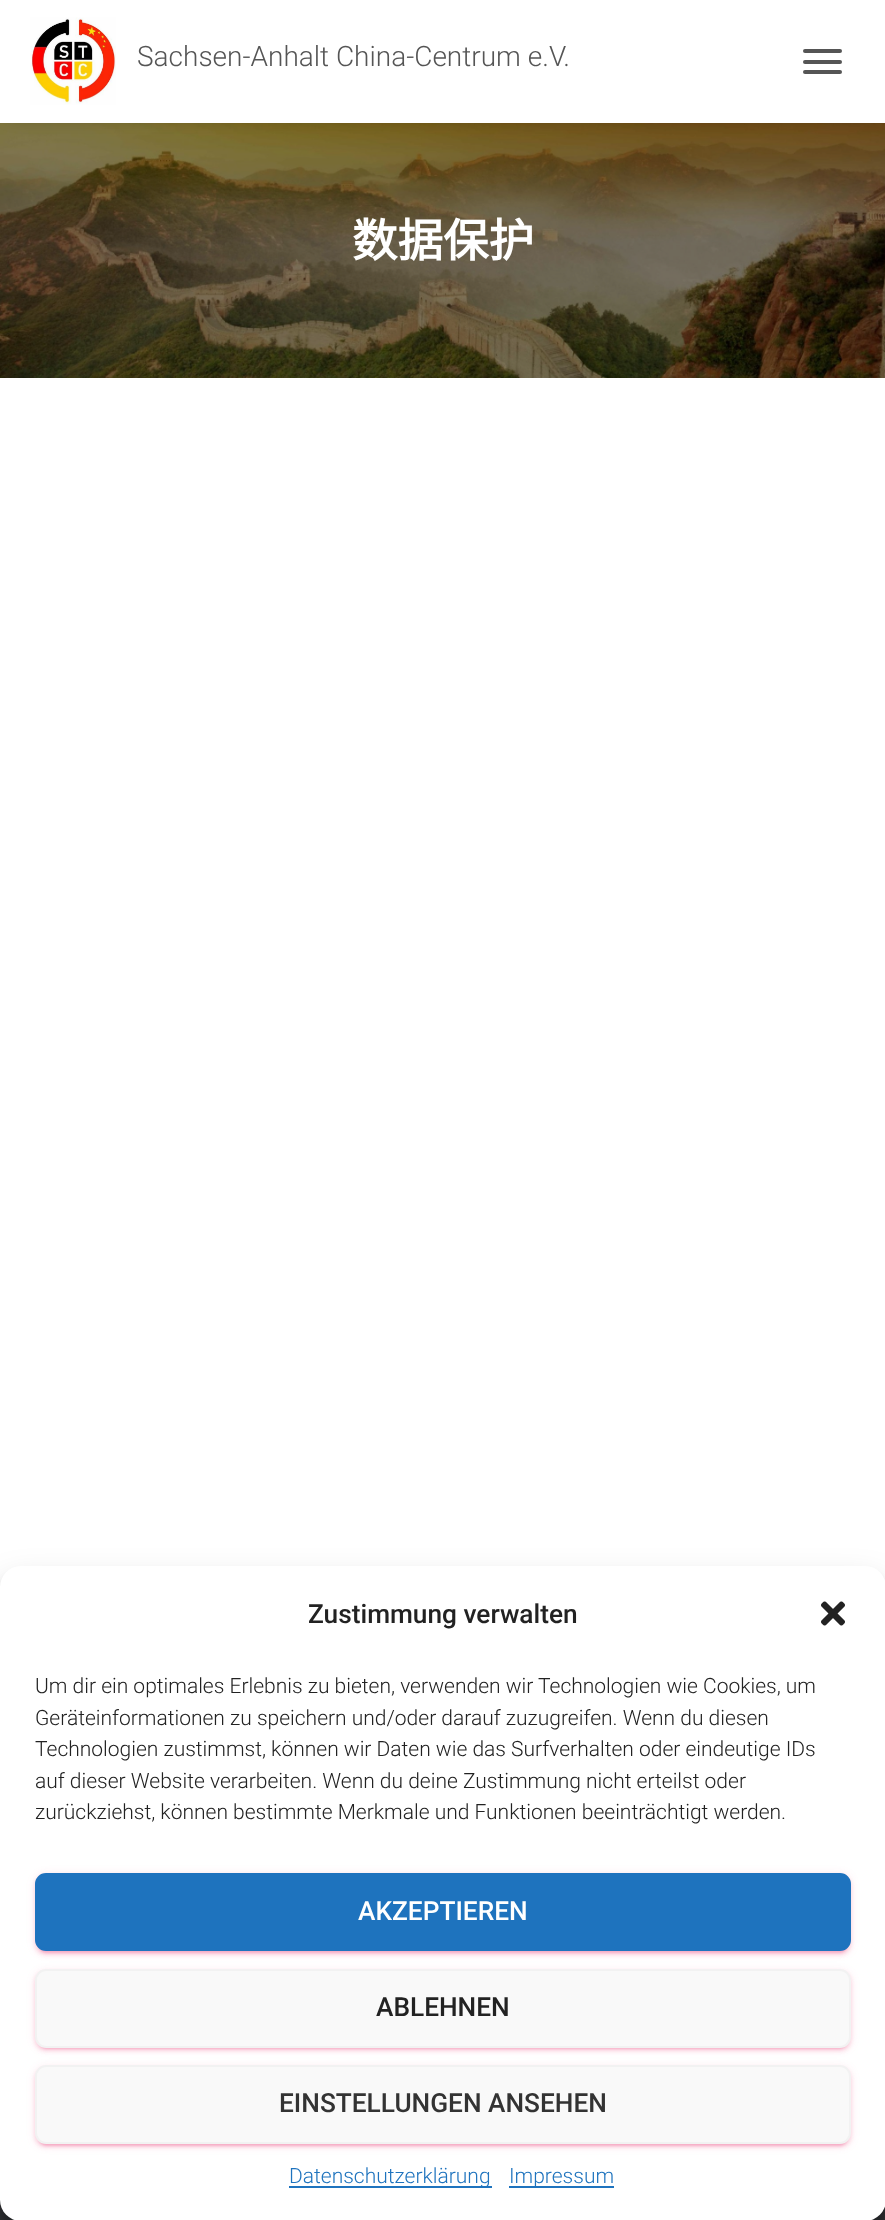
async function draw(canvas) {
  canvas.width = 885
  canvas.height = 2220
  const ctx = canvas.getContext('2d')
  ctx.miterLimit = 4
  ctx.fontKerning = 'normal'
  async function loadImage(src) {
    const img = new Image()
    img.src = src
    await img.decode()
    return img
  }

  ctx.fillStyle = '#323437'
  ctx.fillRect(0, 0, 885, 2220)
  ctx.drawImage(await loadImage('image1.png'), 0, 123, 885, 255)
  ctx.fillStyle = '#0000006b'
  ctx.filter = 'blur(9px)'
  ctx.beginPath()
  ctx.rect(11, 12, 864, 102)
  ctx.fill()
  ctx.filter = 'none'
  ctx.fillStyle = '#fff'
  ctx.fillRect(0, 0, 885, 123)
  ctx.drawImage(await loadImage('image0.png'), 30, 17, 86, 88)
  ctx.font = '300 28px Roboto'
  ctx.fillStyle = '#555'
  ctx.fillText('Sachsen-Anhalt China-Centrum e.V.', 137, 66)
  ctx.beginPath()
  ctx.roundRect(803, 49, 39, 4, 2)
  ctx.fill()
  ctx.beginPath()
  ctx.roundRect(803, 60, 39, 4, 2)
  ctx.fill()
  ctx.beginPath()
  ctx.roundRect(803, 70, 39, 4, 2)
  ctx.fill()
  ctx.font = 'bold 45.5px Noto Sans CJK SC'
  ctx.fillStyle = '#fff'
  ctx.fillText('数据保护', 352, 257)
  ctx.fillRect(0, 378, 885, 1209)
  ctx.fillStyle = '#0000003b'
  ctx.filter = 'blur(5px)'
  ctx.beginPath()
  ctx.roundRect(0, 1577, 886, 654, 21)
  ctx.fill()
  ctx.filter = 'none'
  ctx.fillStyle = '#00000030'
  ctx.filter = 'blur(17.5px)'
  ctx.beginPath()
  ctx.roundRect(0, 1584, 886, 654, 21)
  ctx.fill()
  ctx.filter = 'none'
  ctx.fillStyle = '#fff'
  ctx.beginPath()
  ctx.roundRect(0, 1566, 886, 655, 21)
  ctx.fill()
  ctx.font = '500 26.25px Roboto'
  ctx.fillStyle = '#222'
  ctx.fillText('Zustimmung verwalten', 308, 1623)
  ctx.drawImage(await loadImage('image2.png'), 821, 1601, 24, 25)
  ctx.font = '300 21px Roboto'
  ctx.fillText('Um dir ein optimales Erlebnis zu bieten, verwenden wir Technologien wie Cookies, um', 35, 1693)
  ctx.fillText('Geräteinformationen zu speichern und/oder darauf zuzugreifen. Wenn du diesen', 35, 1725)
  ctx.fillText('Technologien zustimmst, können wir Daten wie das Surfverhalten oder eindeutige IDs', 35, 1756)
  ctx.fillText('auf dieser Website verarbeiten. Wenn du deine Zustimmung nicht erteilst oder', 35, 1788)
  ctx.fillText('zurückziehst, können bestimmte Merkmale und Funktionen beeinträchtigt werden.', 35, 1819)
  ctx.fillStyle = '#e91e631f'
  ctx.filter = 'blur(4.5px)'
  ctx.beginPath()
  ctx.roundRect(35, 1874, 816, 79, 11)
  ctx.fill()
  ctx.filter = 'none'
  ctx.fillStyle = '#e91e6333'
  ctx.filter = 'blur(1px)'
  ctx.beginPath()
  ctx.roundRect(39, 1881, 808, 72, 7)
  ctx.fill()
  ctx.filter = 'none'
  ctx.fillStyle = '#e91e6324'
  ctx.filter = 'blur(2px)'
  ctx.beginPath()
  ctx.roundRect(35, 1876, 816, 79, 11)
  ctx.fill()
  ctx.filter = 'none'
  ctx.fillStyle = '#1e73be'
  ctx.beginPath()
  ctx.roundRect(36, 1874, 814, 76, 10)
  ctx.fill()
  ctx.strokeStyle = '#1e73be'
  ctx.lineWidth = 2
  ctx.stroke()
  ctx.font = '500 26.25px Roboto'
  ctx.fillStyle = '#fff'
  ctx.fillText('AKZEPTIEREN', 358, 1920)
  ctx.fillStyle = '#e91e631f'
  ctx.filter = 'blur(4.5px)'
  ctx.beginPath()
  ctx.roundRect(35, 1971, 816, 78, 11)
  ctx.fill()
  ctx.filter = 'none'
  ctx.fillStyle = '#e91e6333'
  ctx.filter = 'blur(1px)'
  ctx.beginPath()
  ctx.roundRect(39, 1978, 808, 71, 7)
  ctx.fill()
  ctx.filter = 'none'
  ctx.fillStyle = '#e91e6324'
  ctx.filter = 'blur(2px)'
  ctx.beginPath()
  ctx.roundRect(35, 1972, 816, 79, 11)
  ctx.fill()
  ctx.filter = 'none'
  ctx.fillStyle = '#f9f9f9'
  ctx.beginPath()
  ctx.roundRect(36, 1970, 814, 77, 10)
  ctx.fill()
  ctx.strokeStyle = '#f2f2f2'
  ctx.stroke()
  ctx.fillStyle = '#222'
  ctx.fillText('ABLEHNEN', 376, 2016)
  ctx.fillStyle = '#e91e631f'
  ctx.filter = 'blur(4.5px)'
  ctx.beginPath()
  ctx.roundRect(35, 2067, 816, 79, 11)
  ctx.fill()
  ctx.filter = 'none'
  ctx.fillStyle = '#e91e6333'
  ctx.filter = 'blur(1px)'
  ctx.beginPath()
  ctx.roundRect(39, 2074, 808, 72, 7)
  ctx.fill()
  ctx.filter = 'none'
  ctx.fillStyle = '#e91e6324'
  ctx.filter = 'blur(2px)'
  ctx.beginPath()
  ctx.roundRect(35, 2069, 816, 78, 11)
  ctx.fill()
  ctx.filter = 'none'
  ctx.fillStyle = '#f9f9f9'
  ctx.beginPath()
  ctx.roundRect(36, 2066, 814, 77, 10)
  ctx.fill()
  ctx.stroke()
  ctx.fillStyle = '#333'
  ctx.fillText('EINSTELLUNGEN ANSEHEN', 279, 2112)
  ctx.fillStyle = '#1e73be'
  ctx.fillRect(289, 2186, 203, 2)
  ctx.font = '300 21px Roboto'
  ctx.fillText('Datenschutzerklärung', 289, 2183)
  ctx.fillRect(509, 2186, 105, 2)
  ctx.fillText('Impressum', 509, 2183)
}

draw(document.querySelector('canvas'))
